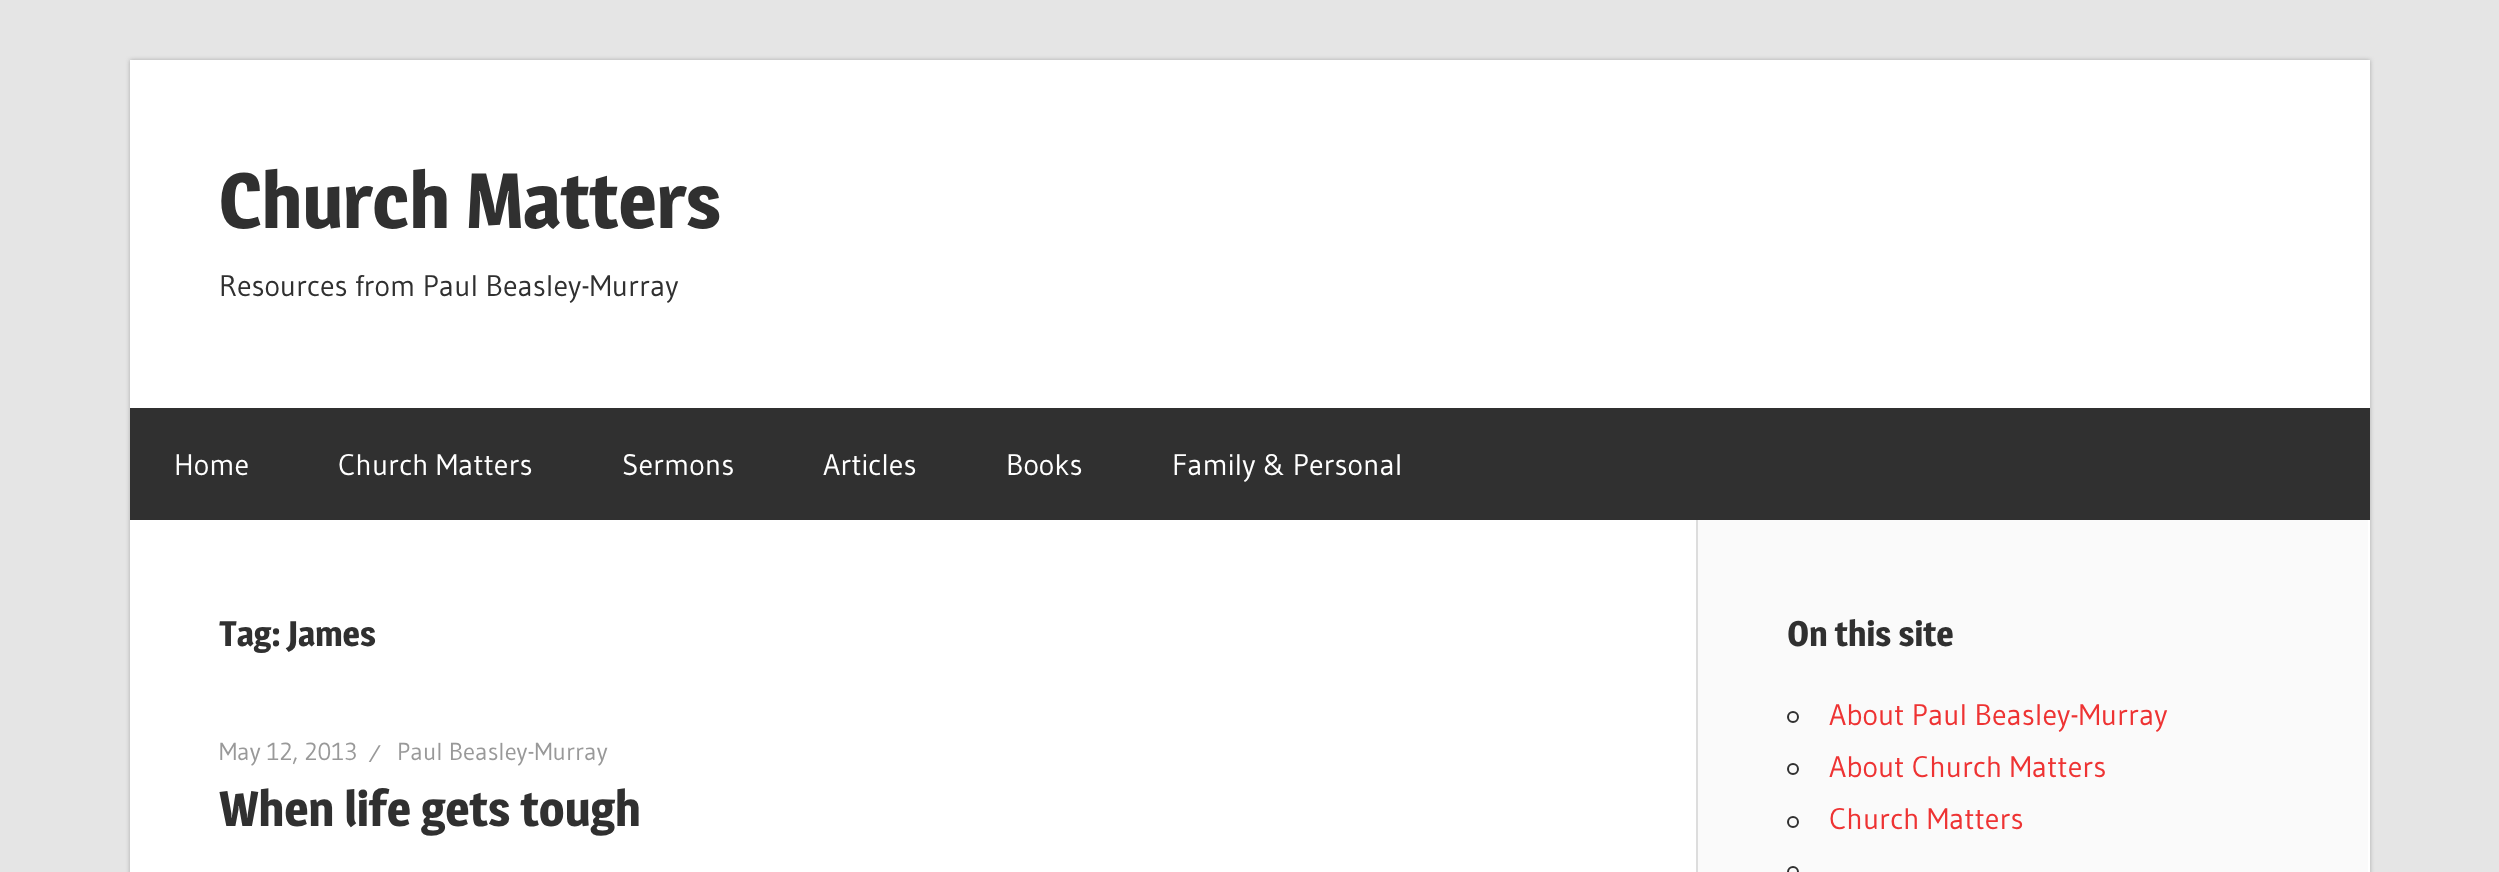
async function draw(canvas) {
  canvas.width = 2499
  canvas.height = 872
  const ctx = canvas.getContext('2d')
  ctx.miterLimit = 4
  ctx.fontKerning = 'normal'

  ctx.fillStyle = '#e5e5e5'
  ctx.fillRect(0, 0, 2499, 872)
  ctx.fillStyle = '#aaa'
  ctx.filter = 'blur(2px)'
  ctx.beginPath()
  ctx.rect(130, 60, 2240, 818)
  ctx.fill()
  ctx.filter = 'none'
  ctx.fillStyle = '#fff'
  ctx.fillRect(130, 60, 2240, 812)
  ctx.font = 'bold 77px Magra'
  ctx.fillStyle = '#303030'
  ctx.fillText('Church Matters', 219, 228)
  ctx.font = '29.75px Gudea'
  ctx.fillText('Resources from Paul Beasley-Murray', 219, 296)
  ctx.fillRect(130, 408, 2240, 112)
  ctx.fillStyle = '#fff'
  ctx.fillText('Home', 174, 475)
  ctx.fillText('Church Matters', 338, 475)
  ctx.fillText('Sermons', 622, 475)
  ctx.fillText('Articles', 823, 475)
  ctx.fillText('Books', 1006, 475)
  ctx.fillText('Family & Personal', 1172, 475)
  ctx.font = 'bold 35px Magra'
  ctx.fillStyle = '#303030'
  ctx.fillText('Tag: James', 219, 646)
  ctx.font = '24.5px Gudea'
  ctx.fillStyle = '#999'
  ctx.fillText('May 12, 2013', 219, 760)
  ctx.fillText('⁄', 369, 762)
  ctx.fillText('Paul Beasley-Murray', 397, 760)
  ctx.font = 'bold 49px Magra'
  ctx.fillStyle = '#303030'
  ctx.fillText('When life gets tough', 219, 826)
  ctx.fillStyle = '#fafafa'
  ctx.fillRect(1698, 520, 670, 352)
  ctx.fillStyle = '#ddd'
  ctx.fillRect(1696, 520, 2, 352)
  ctx.font = 'bold 35px Magra'
  ctx.fillStyle = '#303030'
  ctx.fillText('On this site', 1787, 646)
  ctx.beginPath()
  ctx.arc(1793, 717, 5, 0, 2 * Math.PI)
  ctx.strokeStyle = '#303030'
  ctx.lineWidth = 2
  ctx.stroke()
  ctx.font = '29.75px Gudea'
  ctx.fillStyle = '#e33'
  ctx.fillText('About Paul Beasley-Murray', 1829, 725)
  ctx.beginPath()
  ctx.arc(1793, 769, 5, 0, 2 * Math.PI)
  ctx.stroke()
  ctx.fillText('About Church Matters', 1829, 777)
  ctx.beginPath()
  ctx.arc(1793, 822, 5, 0, 2 * Math.PI)
  ctx.stroke()
  ctx.fillText('Church Matters', 1829, 829)
  ctx.beginPath()
  ctx.roundRect(1788, 867, 10, 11, 5)
  ctx.stroke()
}

draw(document.querySelector('canvas'))
